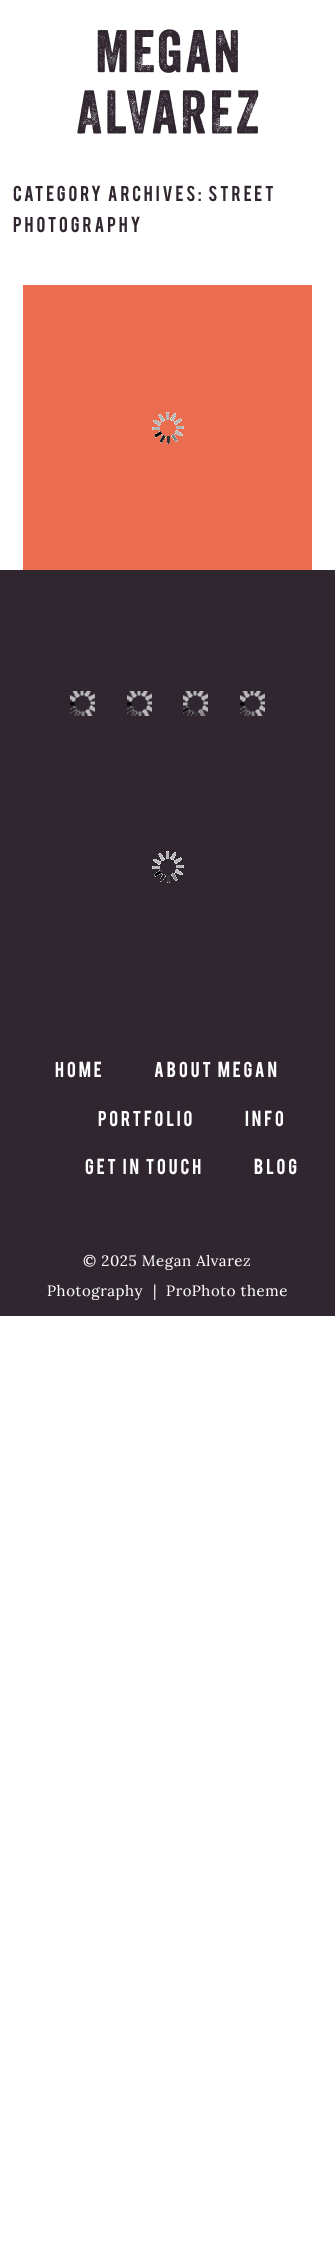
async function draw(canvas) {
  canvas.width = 335
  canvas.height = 2251
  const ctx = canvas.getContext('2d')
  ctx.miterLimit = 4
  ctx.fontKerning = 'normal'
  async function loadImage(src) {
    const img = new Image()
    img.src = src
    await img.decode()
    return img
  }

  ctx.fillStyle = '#fff'
  ctx.fillRect(0, 0, 335, 2251)
  ctx.drawImage(await loadImage('image0.png'), 77, 29, 182, 105)
  ctx.letterSpacing = '2.55px'
  ctx.font = '17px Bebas'
  ctx.fillStyle = '#302630'
  ctx.fillText('Category Archives: street', 13, 201)
  ctx.fillText('photography', 13, 232)
  ctx.fillStyle = '#ea6d50'
  ctx.fillRect(23, 285, 289, 285)
  ctx.drawImage(await loadImage('image1.png'), 152, 412, 32, 32)
  ctx.fillStyle = '#302630'
  ctx.fillRect(0, 570, 335, 746)
  ctx.drawImage(await loadImage('image2.png'), 70, 691, 25, 25)
  ctx.drawImage(await loadImage('image2.png'), 127, 691, 25, 25)
  ctx.drawImage(await loadImage('image3.png'), 183, 691, 25, 25)
  ctx.drawImage(await loadImage('image2.png'), 240, 691, 25, 25)
  ctx.drawImage(await loadImage('image4.png'), 152, 851, 32, 32)
  ctx.fillStyle = '#fff'
  ctx.fillText('Home', 55, 1077)
  ctx.fillText('About Megan', 154, 1077)
  ctx.fillText('Portfolio', 98, 1126)
  ctx.fillText('Info', 245, 1126)
  ctx.fillText('Get in touch', 85, 1174)
  ctx.fillText('Blog', 254, 1174)
  ctx.letterSpacing = '0.6px'
  ctx.font = '15px Lora'
  ctx.fillText('© 2025 Megan Alvarez', 83, 1266)
  ctx.fillText('Photography', 47, 1296)
  ctx.fillText('|', 153, 1296)
  ctx.fillText('ProPhoto theme', 166, 1296)
}

draw(document.querySelector('canvas'))
